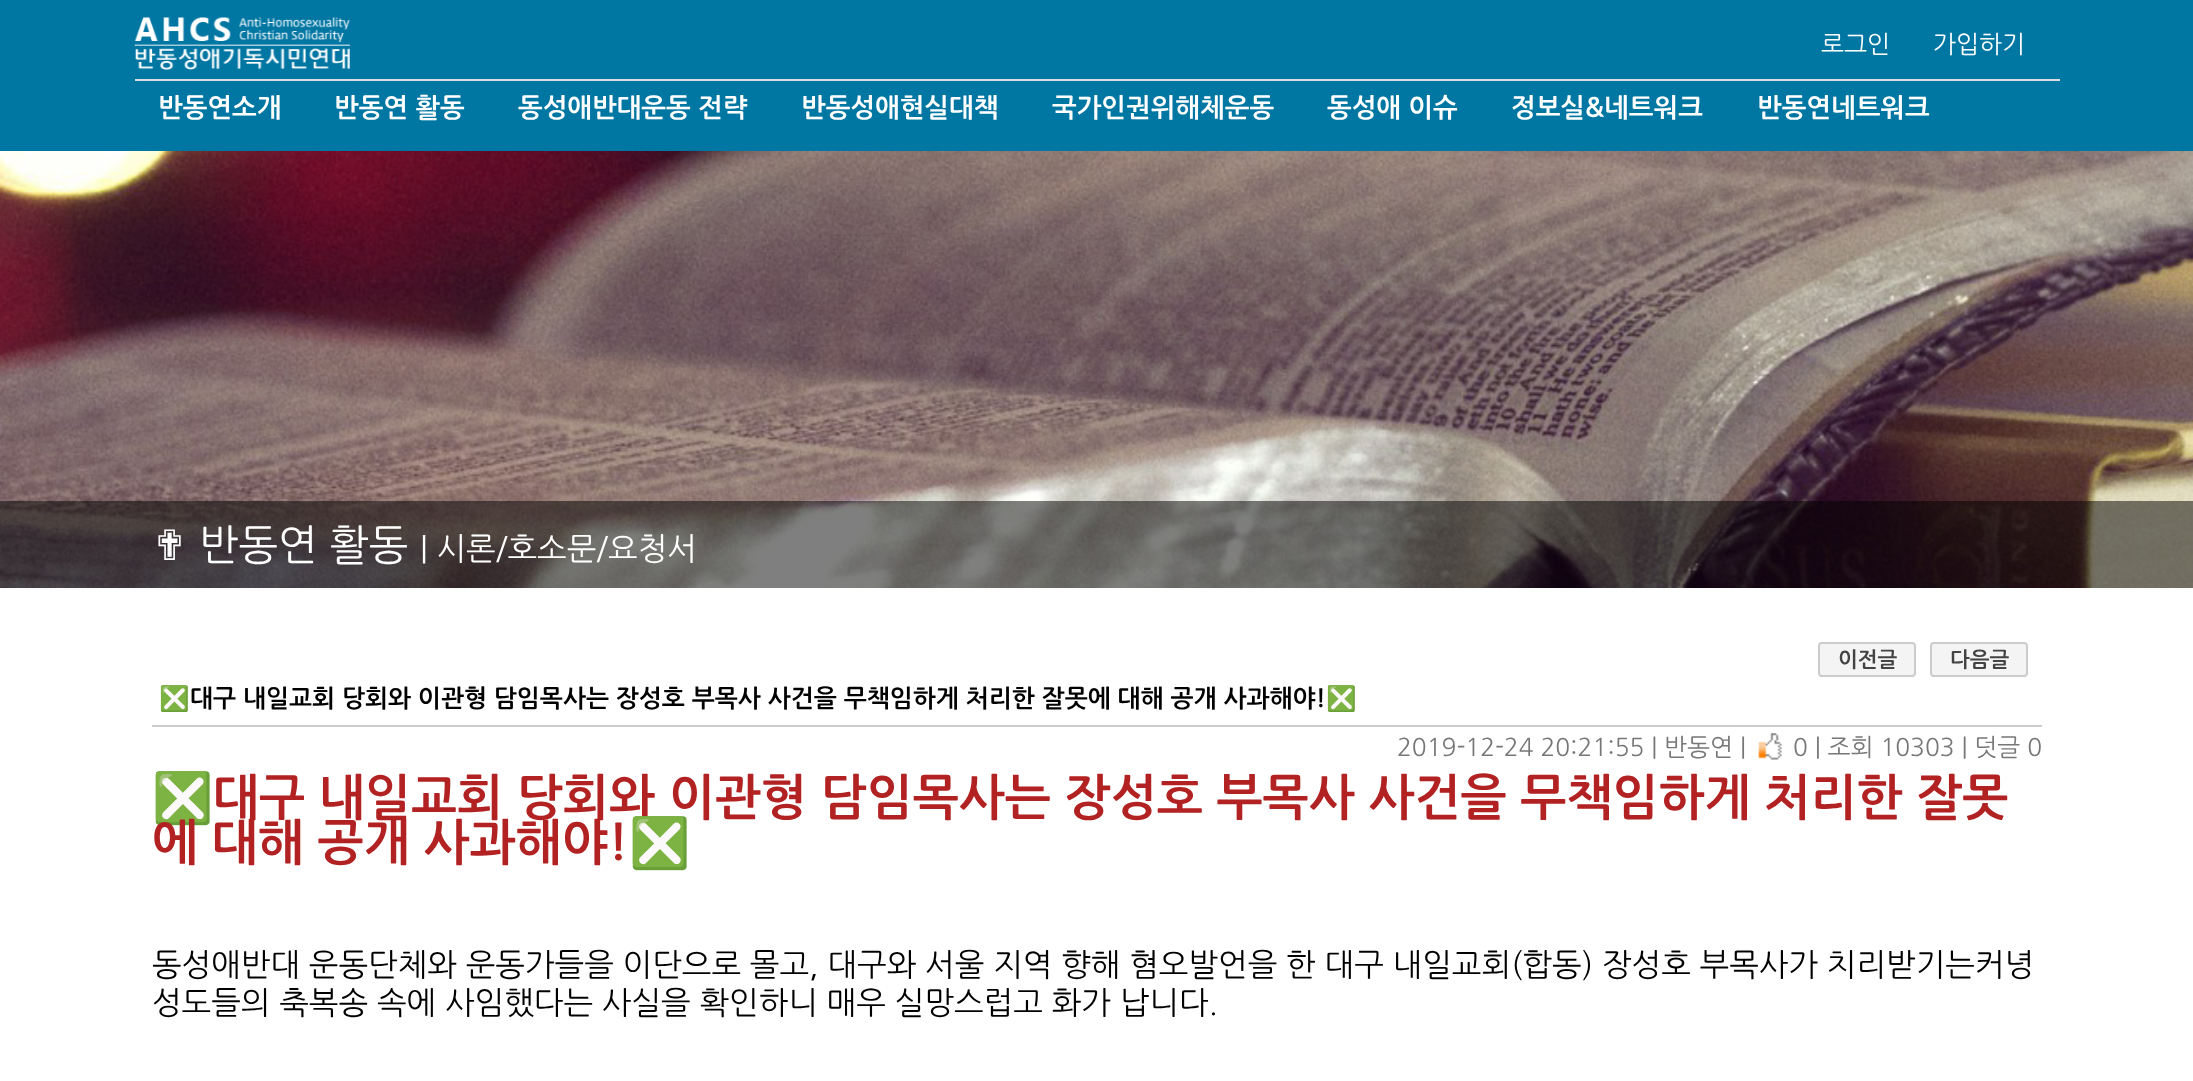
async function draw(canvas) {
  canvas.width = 2193
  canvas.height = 1081
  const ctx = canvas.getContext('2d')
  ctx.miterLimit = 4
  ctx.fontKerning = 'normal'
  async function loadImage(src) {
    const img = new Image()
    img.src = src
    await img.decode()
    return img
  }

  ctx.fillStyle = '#fff'
  ctx.fillRect(0, 0, 2193, 1081)
  ctx.fillStyle = '#0076a3'
  ctx.fillRect(0, 0, 2193, 151)
  ctx.drawImage(await loadImage('image0.png'), 134, 17, 216, 53)
  ctx.font = '24.5px NanumGothic'
  ctx.fillStyle = '#fff'
  ctx.fillText('로그인', 1821, 53)
  ctx.fillText('가입하기', 1933, 53)
  ctx.fillStyle = '#ddd'
  ctx.fillRect(135, 79, 1925, 2)
  ctx.font = 'bold 26.25px NanumGothic'
  ctx.fillStyle = '#fff'
  ctx.fillText('반동연소개', 158, 117)
  ctx.fillText('반동연 활동', 334, 117)
  ctx.fillText('동성애반대운동 전략', 518, 117)
  ctx.fillText('반동성애현실대책', 801, 117)
  ctx.fillText('국가인권위해체운동', 1052, 117)
  ctx.fillText('동성애 이슈', 1327, 117)
  ctx.fillText('정보실&네트워크', 1511, 117)
  ctx.fillText('반동연네트워크', 1757, 117)
  ctx.drawImage(await loadImage('image1.png'), 0, 151, 2193, 437)
  ctx.fillStyle = '#00000080'
  ctx.fillRect(0, 501, 2193, 87)
  ctx.font = '42px DejaVu Sans'
  ctx.fillStyle = '#fff'
  ctx.fillText('✟', 152, 560)
  ctx.font = '42px NanumGothic'
  ctx.fillText('반동연 활동', 199, 560)
  ctx.font = '31.5px NanumGothic'
  ctx.fillText('| 시론/호소문/요청서', 420, 560)
  ctx.fillStyle = '#f4f4f4'
  ctx.beginPath()
  ctx.roundRect(1819, 643, 96, 33, 3)
  ctx.fill()
  ctx.strokeStyle = '#ccc'
  ctx.lineWidth = 2
  ctx.stroke()
  ctx.font = 'bold 21px NanumGothic'
  ctx.fillStyle = '#444'
  ctx.fillText('이전글', 1838, 667)
  ctx.fillStyle = '#f4f4f4'
  ctx.beginPath()
  ctx.roundRect(1931, 643, 96, 33, 3)
  ctx.fill()
  ctx.stroke()
  ctx.fillStyle = '#444'
  ctx.fillText('다음글', 1950, 667)
  ctx.font = 'bold 24.5px Noto Color Emoji'
  ctx.fillStyle = '#000'
  ctx.fillText('❎', 159, 707)
  ctx.font = 'bold 24.5px NanumGothic'
  ctx.fillText('대구 내일교회 당회와 이관형 담임목사는 장성호 부목사 사건을 무책임하게 처리한 잘못에 대해 공개 사과해야!', 190, 707)
  ctx.font = 'bold 24.5px Noto Color Emoji'
  ctx.fillText('❎', 1326, 707)
  ctx.fillStyle = '#ccc'
  ctx.fillRect(152, 725, 1890, 2)
  ctx.font = '24.5px NanumGothic'
  ctx.fillStyle = '#777'
  ctx.fillText('2019-12-24 20:21:55 | 반동연 |', 1397, 756)
  ctx.drawImage(await loadImage('image2.png'), 1758, 733, 24, 27)
  ctx.fillText('0 | 조회 10303 | 덧글 0', 1793, 756)
  ctx.font = 'bold 49px Noto Color Emoji'
  ctx.fillStyle = '#b22222'
  ctx.fillText('❎', 152, 815)
  ctx.font = 'bold 49px NanumGothic'
  ctx.fillText('대구 내일교회 당회와 이관형 담임목사는 장성호 부목사 사건을 무책임하게 처리한 잘못', 213, 815)
  ctx.fillText('에 대해 공개 사과해야!', 152, 860)
  ctx.font = 'bold 49px Noto Color Emoji'
  ctx.fillText('❎', 629, 860)
  ctx.font = '31.5px NanumGothic'
  ctx.fillStyle = '#000'
  ctx.fillText('동성애반대 운동단체와 운동가들을 이단으로 몰고, 대구와 서울 지역 향해 혐오발언을 한 대구 내일교회(합동) 장성호 부목사가 치리받기는커녕', 152, 976)
  ctx.fillText('성도들의 축복송 속에 사임했다는 사실을 확인하니 매우 실망스럽고 화가 납니다.', 152, 1014)
}

draw(document.querySelector('canvas'))
